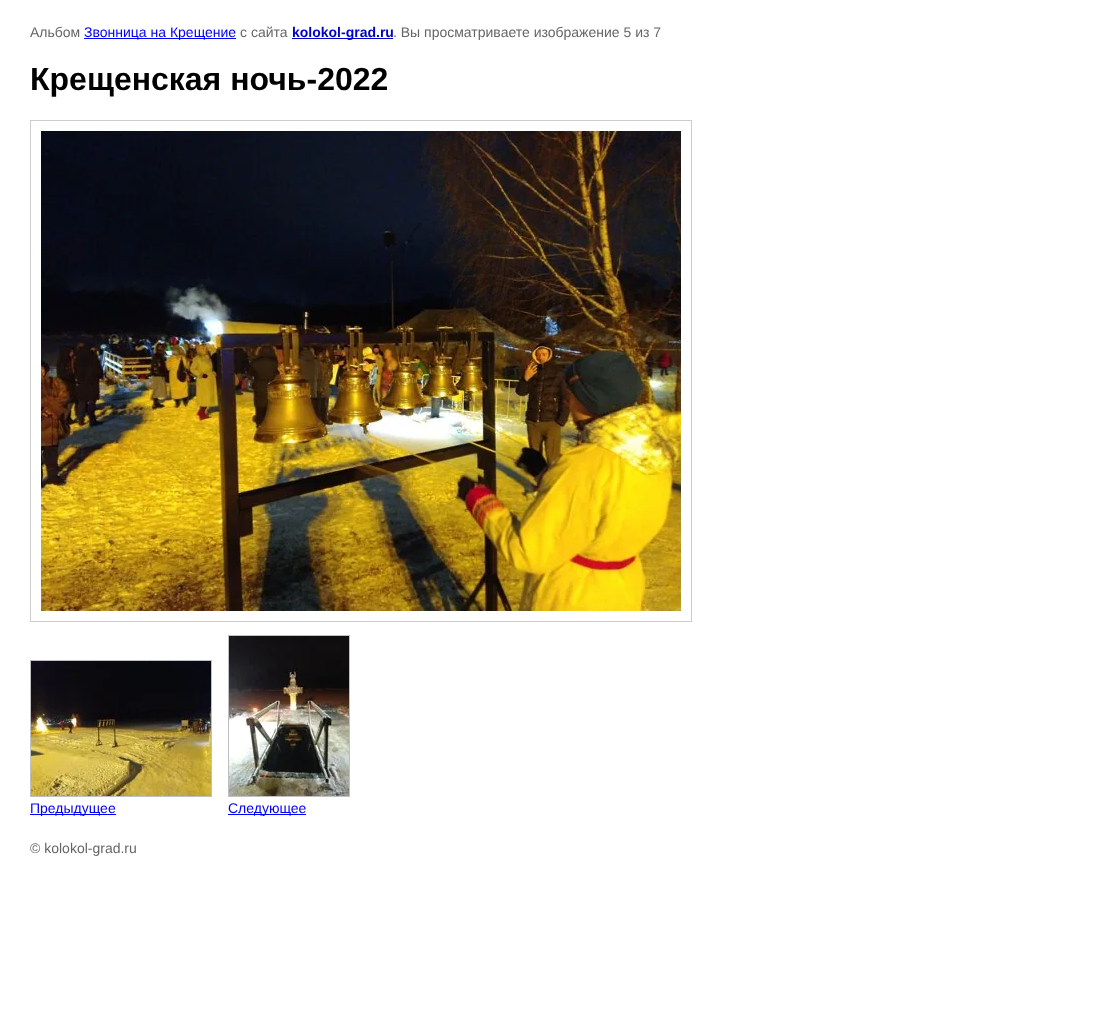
async function draw(canvas) {
  canvas.width = 1118
  canvas.height = 1016
  const ctx = canvas.getContext('2d')
  ctx.miterLimit = 4
  ctx.fontKerning = 'normal'
  async function loadImage(src) {
    const img = new Image()
    img.src = src
    await img.decode()
    return img
  }

  ctx.fillStyle = '#fff'
  ctx.fillRect(0, 0, 1118, 1016)
  ctx.font = '14px Liberation Sans'
  ctx.fillStyle = '#666'
  ctx.fillText('Альбом', 30, 37)
  ctx.fillStyle = '#00f'
  ctx.fillRect(84, 38, 152, 1)
  ctx.fillText('Звонница на Крещение', 84, 37)
  ctx.fillStyle = '#666'
  ctx.fillText('с сайта', 240, 37)
  ctx.fillStyle = '#00c'
  ctx.fillRect(292, 38, 101, 1)
  ctx.font = 'bold 14px Liberation Sans'
  ctx.fillText('kolokol-grad.ru', 292, 37)
  ctx.font = '14px Liberation Sans'
  ctx.fillStyle = '#666'
  ctx.fillText('. Вы просматриваете изображение 5 из 7', 393, 37)
  ctx.font = 'bold 32px Liberation Sans'
  ctx.fillStyle = '#000'
  ctx.fillText('Крещенская ночь-2022', 30, 90)
  ctx.strokeStyle = '#ccc'
  ctx.strokeRect(30.5, 120.5, 661, 501)
  ctx.drawImage(await loadImage('image0.png'), 41, 131, 640, 480)
  ctx.strokeStyle = '#c0c0c0'
  ctx.strokeRect(30.5, 660.5, 181, 136)
  ctx.drawImage(await loadImage('image1.png'), 31, 661, 180, 135)
  ctx.fillStyle = '#00f'
  ctx.fillRect(30, 814, 86, 1)
  ctx.font = '14px Liberation Sans'
  ctx.fillText('Предыдущее', 30, 813)
  ctx.strokeRect(228.5, 635.5, 121, 161)
  ctx.drawImage(await loadImage('image2.png'), 229, 636, 120, 160)
  ctx.fillRect(228, 814, 78, 1)
  ctx.fillText('Следующее', 228, 813)
  ctx.fillStyle = '#666'
  ctx.fillText('© kolokol-grad.ru', 30, 853)
}

draw(document.querySelector('canvas'))
